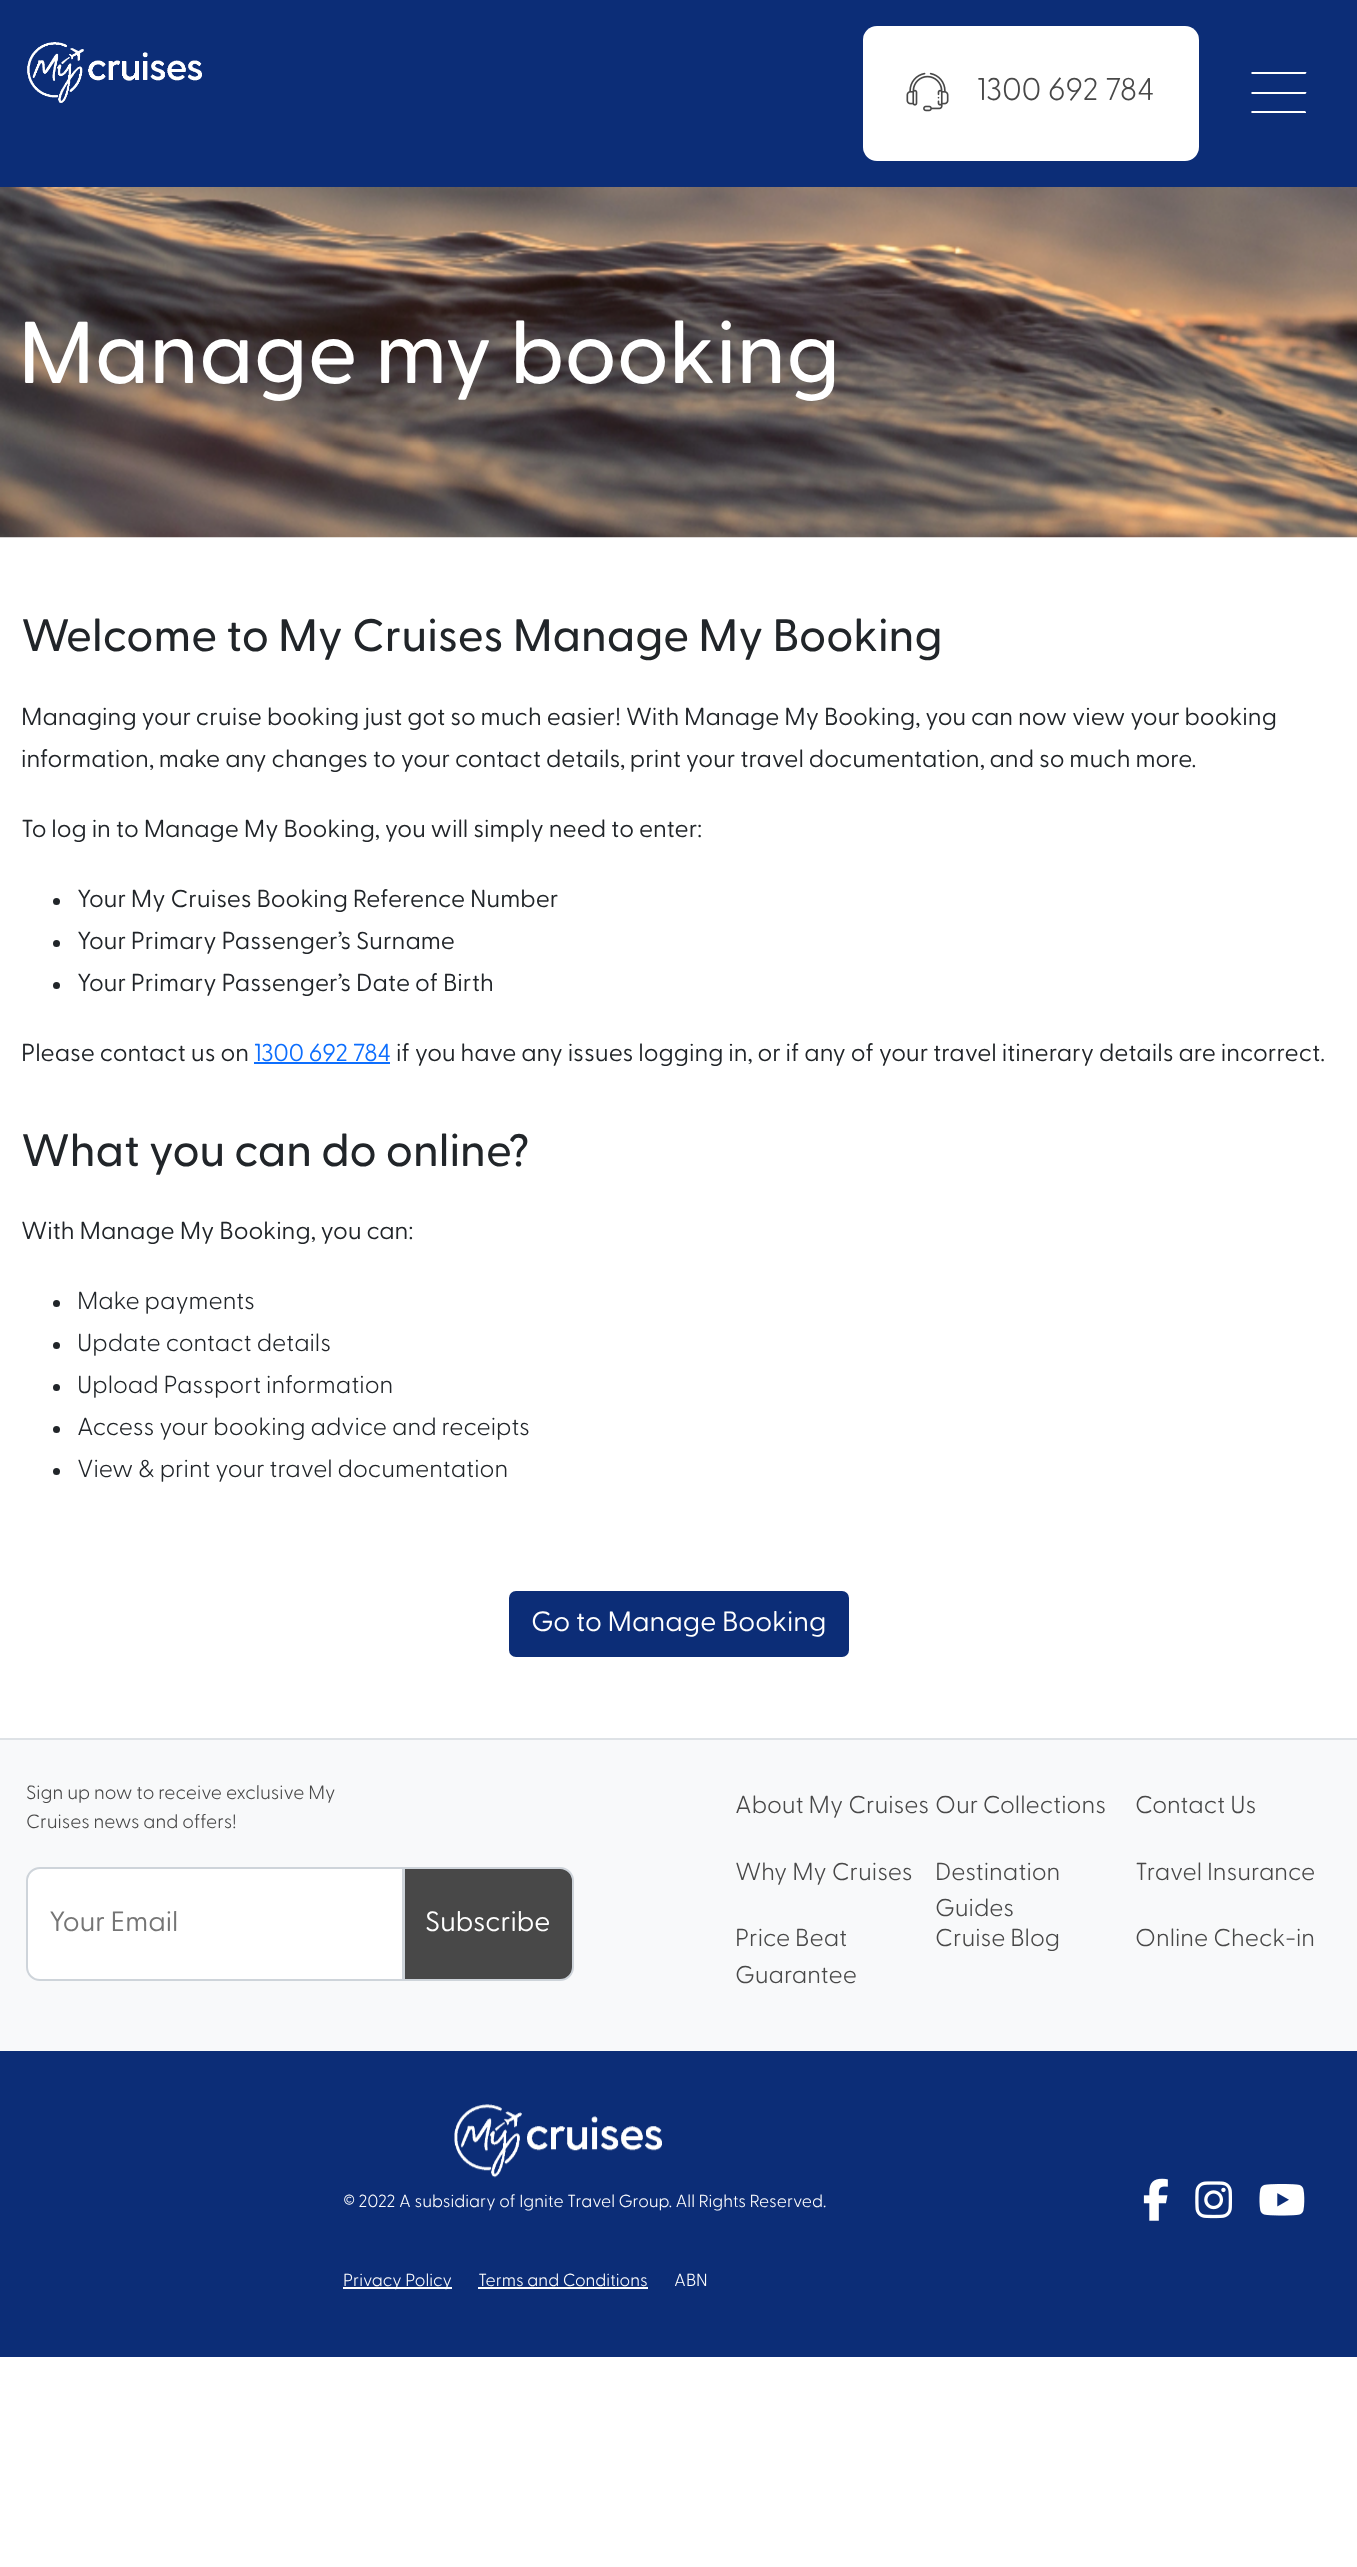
async function draw(canvas) {
  canvas.width = 1357
  canvas.height = 2567
  const ctx = canvas.getContext('2d')
  ctx.miterLimit = 4
  ctx.fontKerning = 'normal'
  async function loadImage(src) {
    const img = new Image()
    img.src = src
    await img.decode()
    return img
  }

  ctx.fillStyle = '#fff'
  ctx.fillRect(0, 0, 1357, 2567)
  ctx.fillStyle = '#0c2d77'
  ctx.fillRect(0, 0, 1357, 187)
  ctx.drawImage(await loadImage('image0.png'), 27, 42, 175, 61)
  ctx.fillStyle = '#fff'
  ctx.beginPath()
  ctx.roundRect(863, 26, 336, 135, 14)
  ctx.fill()
  ctx.drawImage(await loadImage('image1.png'), 906, 72, 43, 40)
  ctx.letterSpacing = '0.25px'
  ctx.font = '300 31.5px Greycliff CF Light'
  ctx.fillStyle = '#484848'
  ctx.fillText('1300 692 784', 977, 100)
  ctx.fillStyle = '#fff'
  ctx.beginPath()
  ctx.moveTo(1251, 73)
  ctx.lineTo(1252, 72)
  ctx.lineTo(1306, 72)
  ctx.bezierCurveTo(1307, 72, 1306, 74, 1305, 74)
  ctx.lineTo(1252, 74)
  ctx.closePath()
  ctx.moveTo(1251, 93)
  ctx.lineTo(1252, 92)
  ctx.lineTo(1306, 92)
  ctx.bezierCurveTo(1307, 92, 1306, 94, 1305, 94)
  ctx.lineTo(1252, 94)
  ctx.closePath()
  ctx.moveTo(1306, 112)
  ctx.lineTo(1306, 113)
  ctx.lineTo(1252, 113)
  ctx.bezierCurveTo(1251, 113, 1251, 111, 1252, 111)
  ctx.lineTo(1305, 111)
  ctx.closePath()
  ctx.fill()
  ctx.drawImage(await loadImage('image2.png'), 0, 187, 1357, 351)
  ctx.letterSpacing = '0px'
  ctx.font = '500 87.5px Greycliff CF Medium'
  ctx.fillText('Manage my booking', 18, 383)
  ctx.font = '500 45.5px Greycliff CF Medium'
  ctx.fillStyle = '#212529'
  ctx.fillText('Welcome to My Cruises Manage My Booking', 21, 651)
  ctx.font = '24.5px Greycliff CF'
  ctx.fillText('Managing your cruise booking just got so much easier! With Manage My Booking, you can now view your booking', 21, 725)
  ctx.fillText('information, make any changes to your contact details, print your travel documentation, and so much more.', 21, 767)
  ctx.fillText('To log in to Manage My Booking, you will simply need to enter:', 21, 837)
  ctx.beginPath()
  ctx.arc(56.5, 901.5, 3.5, 0, 2 * Math.PI)
  ctx.fill()
  ctx.fillText('Your My Cruises Booking Reference Number', 77, 907)
  ctx.beginPath()
  ctx.arc(56.5, 943.5, 3.5, 0, 2 * Math.PI)
  ctx.fill()
  ctx.fillText('Your Primary Passenger’s Surname', 77, 949)
  ctx.beginPath()
  ctx.arc(56.5, 985.5, 3.5, 0, 2 * Math.PI)
  ctx.fill()
  ctx.fillText('Your Primary Passenger’s Date of Birth', 77, 991)
  ctx.fillText('Please contact us on', 21, 1061)
  ctx.fillStyle = '#0d6efd'
  ctx.fillText('1300 692 784', 254, 1061)
  ctx.fillRect(254, 1062, 136, 2)
  ctx.fillStyle = '#212529'
  ctx.fillText('if you have any issues logging in, or if any of your travel itinerary details are incorrect.', 396, 1061)
  ctx.font = '500 45.5px Greycliff CF Medium'
  ctx.fillText('What you can do online?', 21, 1166)
  ctx.font = '24.5px Greycliff CF'
  ctx.fillText('With Manage My Booking, you can:', 21, 1239)
  ctx.beginPath()
  ctx.arc(56.5, 1303.5, 3.5, 0, 2 * Math.PI)
  ctx.fill()
  ctx.font = '300 24.5px Greycliff CF Light'
  ctx.fillText('Make payments', 77, 1309)
  ctx.beginPath()
  ctx.arc(56.5, 1345.5, 3.5, 0, 2 * Math.PI)
  ctx.fill()
  ctx.fillText('Update contact details', 77, 1351)
  ctx.beginPath()
  ctx.arc(56.5, 1387.5, 3.5, 0, 2 * Math.PI)
  ctx.fill()
  ctx.fillText('Upload Passport information', 77, 1393)
  ctx.beginPath()
  ctx.arc(56.5, 1429.5, 3.5, 0, 2 * Math.PI)
  ctx.fill()
  ctx.fillText('Access your booking advice and receipts', 77, 1435)
  ctx.beginPath()
  ctx.arc(56.5, 1471.5, 3.5, 0, 2 * Math.PI)
  ctx.fill()
  ctx.fillText('View & print your travel documentation', 77, 1477)
  ctx.fillStyle = '#0c2d77'
  ctx.beginPath()
  ctx.roundRect(510, 1592, 338, 64, 6)
  ctx.fill()
  ctx.strokeStyle = '#0c2d77'
  ctx.lineWidth = 2
  ctx.stroke()
  ctx.font = '28px Greycliff CF'
  ctx.fillStyle = '#fff'
  ctx.fillText('Go to Manage Booking', 531, 1631)
  ctx.fillStyle = '#0c2d77'
  ctx.fillRect(0, 2051, 1357, 306)
  ctx.fillStyle = '#f8f9fa'
  ctx.fillRect(0, 1740, 1357, 311)
  ctx.fillStyle = '#dee2e6'
  ctx.fillRect(0, 1738, 1357, 2)
  ctx.font = '300 19.25px Greycliff CF Light'
  ctx.fillStyle = '#484848'
  ctx.fillText('Sign up now to receive exclusive My', 26, 1799)
  ctx.fillText('Cruises news and offers!', 26, 1828)
  ctx.fillStyle = '#fff'
  ctx.beginPath()
  ctx.roundRect(27, 1868, 376, 112, [13, 0, 0, 13])
  ctx.fill()
  ctx.strokeStyle = '#ced4da'
  ctx.stroke()
  ctx.font = '28px Greycliff CF'
  ctx.fillStyle = '#757575'
  ctx.fillText('Your Email', 49, 1931)
  ctx.fillStyle = '#484848'
  ctx.beginPath()
  ctx.roundRect(404, 1868, 169, 112, [0, 13, 13, 0])
  ctx.fill()
  ctx.stroke()
  ctx.fillStyle = '#fff'
  ctx.fillText('Subscribe', 425, 1931)
  ctx.font = '300 24.5px Greycliff CF Light'
  ctx.fillStyle = '#484848'
  ctx.fillText('About My Cruises', 735, 1813)
  ctx.fillText('Our Collections', 935, 1813)
  ctx.fillText('Contact Us', 1135, 1813)
  ctx.fillText('Why My Cruises', 735, 1880)
  ctx.fillText('Destination', 935, 1880)
  ctx.fillText('Guides', 935, 1916)
  ctx.fillText('Travel Insurance', 1135, 1880)
  ctx.fillText('Price Beat', 735, 1946)
  ctx.fillText('Guarantee', 735, 1983)
  ctx.fillText('Cruise Blog', 935, 1946)
  ctx.fillText('Online Check-in', 1135, 1946)
  ctx.drawImage(await loadImage('image3.png'), 454, 2104, 208, 74)
  ctx.font = '300 17.5px Greycliff CF Light'
  ctx.fillStyle = '#fff'
  ctx.fillText('© 2022 A subsidiary of Ignite Travel Group. All Rights Reserved.', 343, 2207)
  ctx.fillRect(343, 2287, 109, 2)
  ctx.fillText('Privacy Policy', 343, 2286)
  ctx.fillText('Terms and Conditions', 478, 2286)
  ctx.fillRect(478, 2287, 170, 2)
  ctx.fillText('ABN', 674, 2286)
  ctx.drawImage(await loadImage('image4.png'), 1143, 2178, 25, 43)
  ctx.drawImage(await loadImage('image5.png'), 1195, 2181, 37, 38)
  ctx.drawImage(await loadImage('image6.png'), 1259, 2184, 46, 32)
}

draw(document.querySelector('canvas'))
